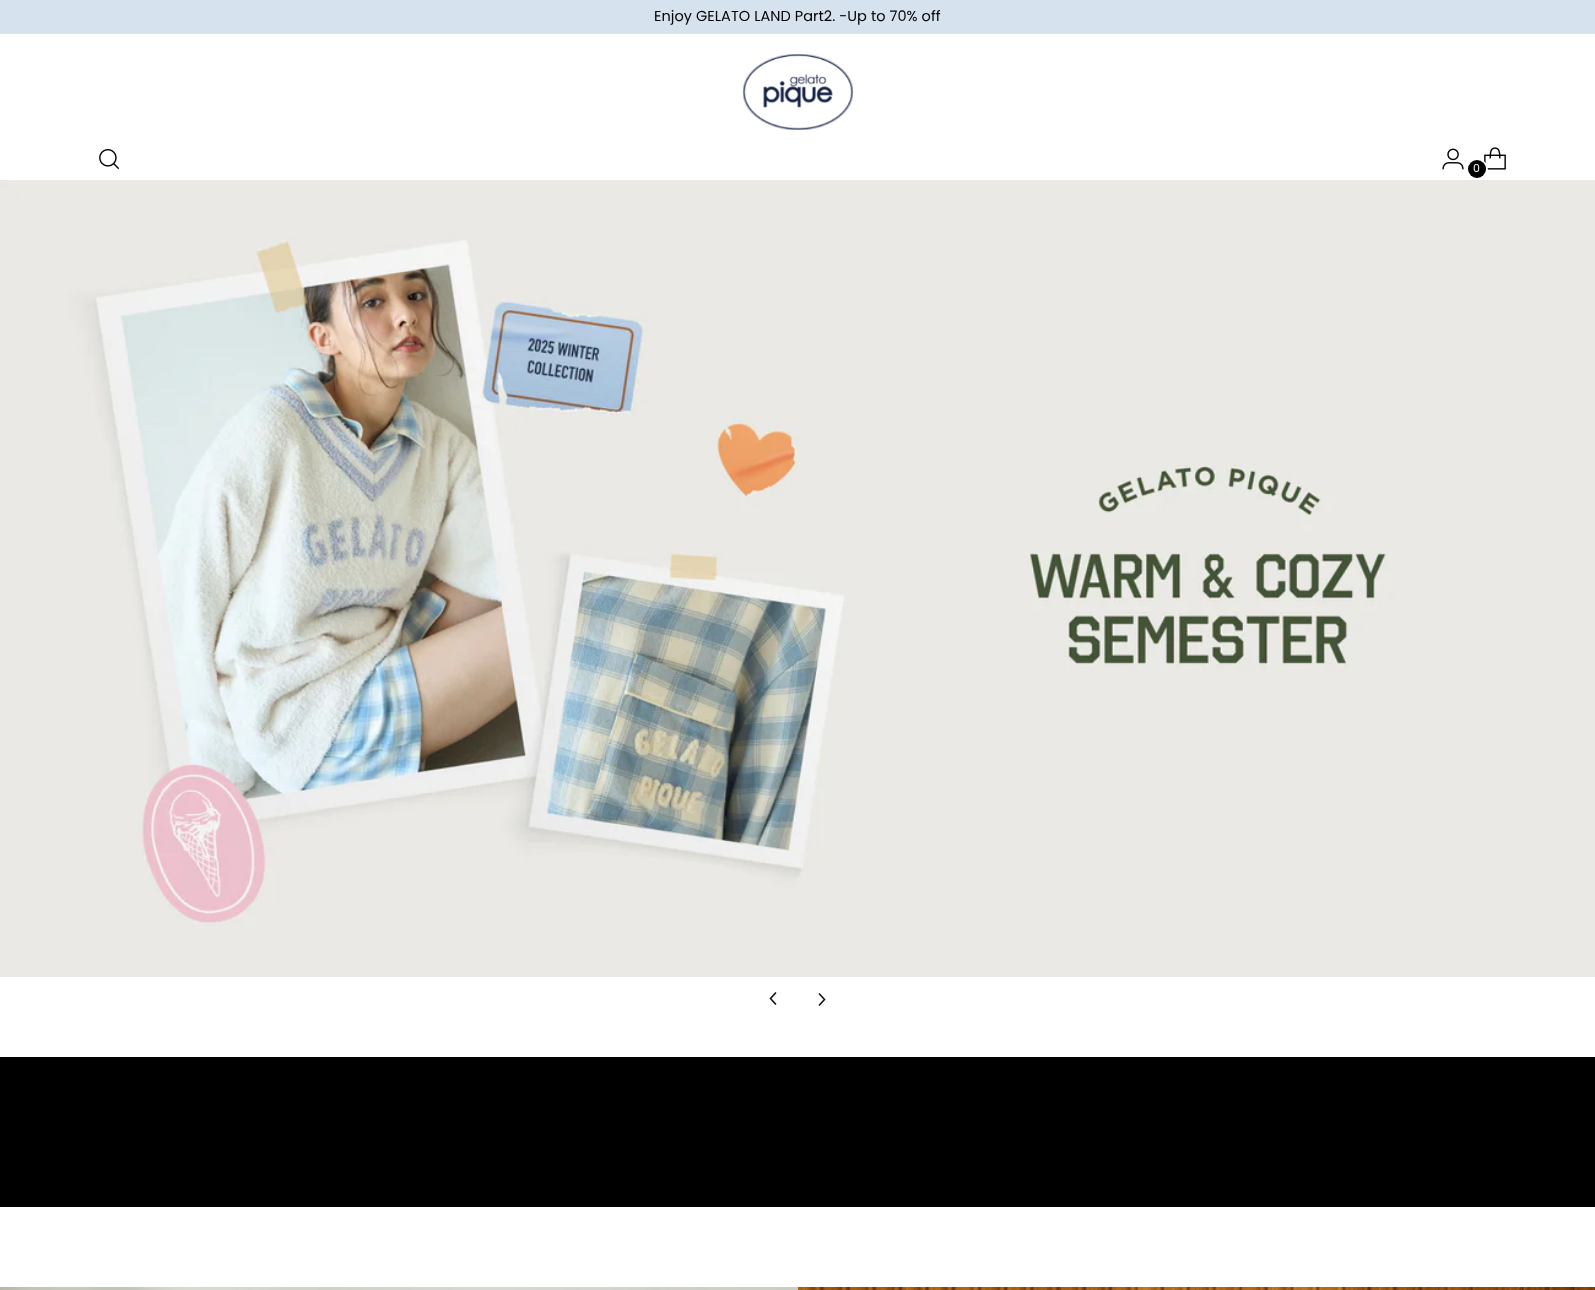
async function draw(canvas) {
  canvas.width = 1595
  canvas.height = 1290
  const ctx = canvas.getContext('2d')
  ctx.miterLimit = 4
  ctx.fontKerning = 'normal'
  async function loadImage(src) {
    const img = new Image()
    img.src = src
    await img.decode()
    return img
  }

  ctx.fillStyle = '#fff'
  ctx.fillRect(0, 0, 1595, 1290)
  ctx.fillStyle = '#d6e3ee'
  ctx.fillRect(0, 0, 1595, 34)
  ctx.letterSpacing = '0.05px'
  ctx.font = '14.5px Poppins'
  ctx.fillStyle = '#000'
  ctx.fillText('Enjoy GELATO LAND Part2. -Up to 70% off', 654, 21)
  ctx.drawImage(await loadImage('image0.png'), 742, 54, 111, 76)
  ctx.drawImage(await loadImage('image1.png'), 99, 149, 21, 21)
  ctx.drawImage(await loadImage('image2.png'), 1442, 148, 22, 22)
  ctx.drawImage(await loadImage('image3.png'), 1484, 147, 22, 23)
  ctx.beginPath()
  ctx.arc(1477.5, 169.5, 9.5, 0, 2 * Math.PI)
  ctx.strokeStyle = '#fff'
  ctx.lineWidth = 2
  ctx.stroke()
  ctx.beginPath()
  ctx.arc(1477, 169, 9, 0, 2 * Math.PI)
  ctx.fill()
  ctx.letterSpacing = '0px'
  ctx.font = '11px Poppins'
  ctx.fillStyle = '#fff'
  ctx.fillText('0', 1473, 172)
  ctx.drawImage(await loadImage('image4.png'), 0, 180, 1595, 797)
  ctx.beginPath()
  ctx.moveTo(776, 992.5)
  ctx.lineTo(770.5, 998.5)
  ctx.lineTo(776, 1004.5)
  ctx.moveTo(819, 1005.5)
  ctx.lineTo(824.5, 999.5)
  ctx.lineTo(819, 993.5)
  ctx.strokeStyle = '#111'
  ctx.lineWidth = 1.6
  ctx.stroke()
  ctx.fillStyle = '#000'
  ctx.fillRect(0, 1057, 1595, 150)
  ctx.drawImage(await loadImage('image5.png'), 0, 1287, 798, 3)
  ctx.drawImage(await loadImage('image6.png'), 798, 1287, 797, 3)
}

draw(document.querySelector('canvas'))
